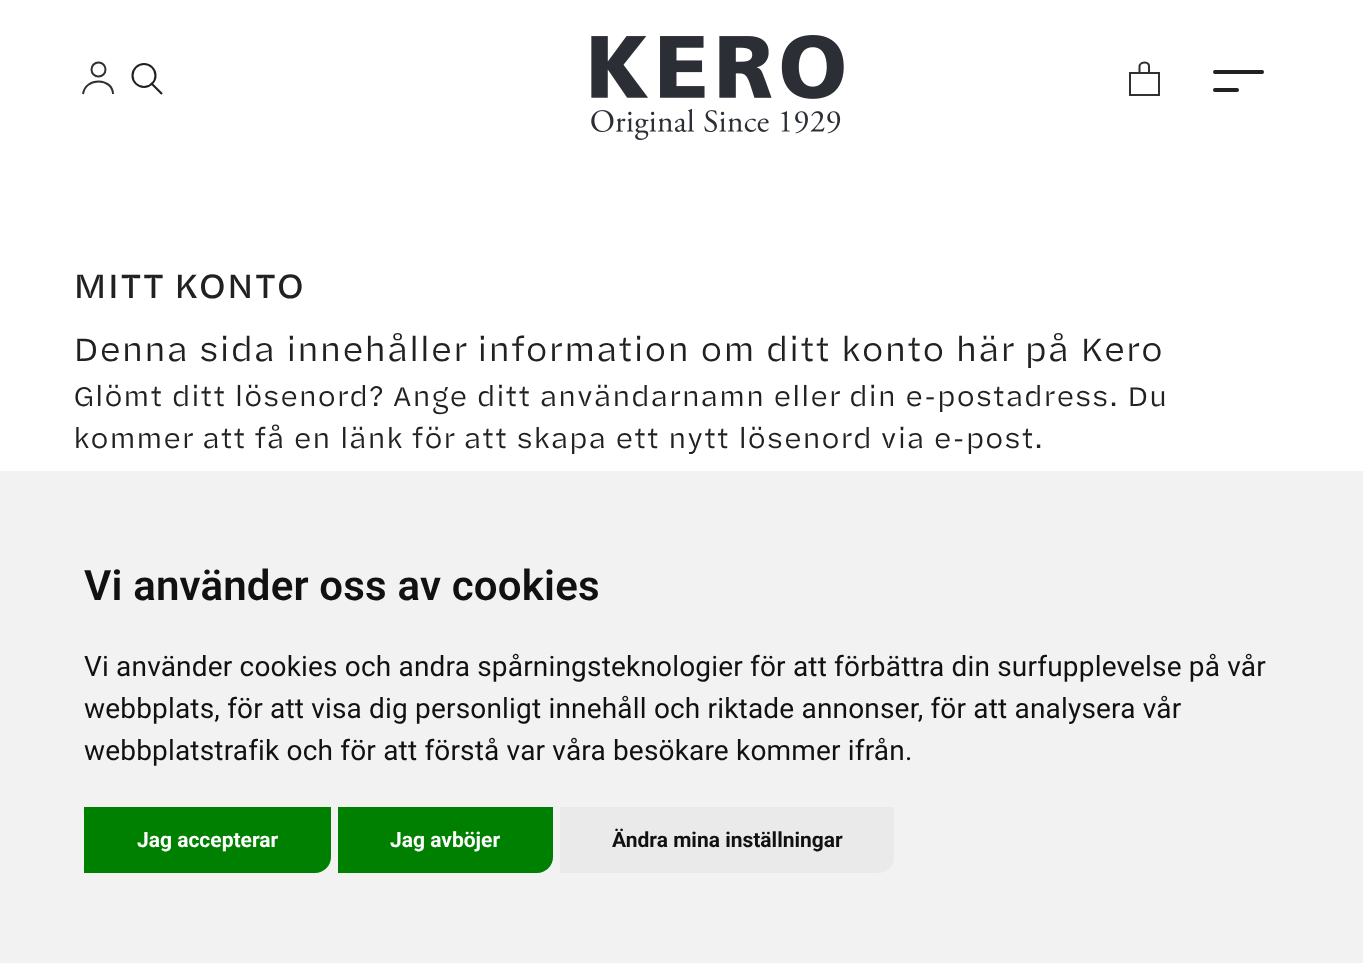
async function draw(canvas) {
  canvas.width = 1363
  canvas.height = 963
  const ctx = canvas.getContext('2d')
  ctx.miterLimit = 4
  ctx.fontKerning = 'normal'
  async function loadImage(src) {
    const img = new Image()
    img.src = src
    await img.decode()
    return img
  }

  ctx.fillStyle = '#fff'
  ctx.fillRect(0, 0, 1363, 963)
  ctx.beginPath()
  ctx.arc(98.5, 69.5, 7, 0, 2 * Math.PI)
  ctx.strokeStyle = '#313131'
  ctx.lineWidth = 2
  ctx.stroke()
  ctx.beginPath()
  ctx.moveTo(83, 94)
  ctx.bezierCurveTo(85.5, 77, 112.5, 77.5, 113, 94)
  ctx.stroke()
  ctx.beginPath()
  ctx.moveTo(151, 83)
  ctx.lineTo(162, 94)
  ctx.strokeStyle = '#212121'
  ctx.lineWidth = 2.1
  ctx.stroke()
  ctx.beginPath()
  ctx.arc(144, 75.5, 11.5, 0, 2 * Math.PI)
  ctx.stroke()
  ctx.drawImage(await loadImage('image0.png'), 591, 35, 253, 105)
  ctx.strokeStyle = '#313131'
  ctx.lineWidth = 2
  ctx.strokeRect(1130, 73, 29, 22)
  ctx.beginPath()
  ctx.moveTo(1139.5, 72.5)
  ctx.lineTo(1139.5, 66)
  ctx.bezierCurveTo(1139.5, 66, 1140, 62.5, 1144.5, 62.5)
  ctx.bezierCurveTo(1149.5, 62.5, 1149, 66.5, 1149, 66.5)
  ctx.lineTo(1149, 72.5)
  ctx.stroke()
  ctx.fillStyle = '#212121'
  ctx.beginPath()
  ctx.roundRect(1213, 70, 51, 4, 2)
  ctx.fill()
  ctx.beginPath()
  ctx.roundRect(1213, 88, 26, 4, 2)
  ctx.fill()
  ctx.letterSpacing = '0.18px'
  ctx.font = '35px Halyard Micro'
  ctx.fillText('MITT KONTO', 73, 298)
  ctx.font = '33.6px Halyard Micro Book'
  ctx.fillText('Denna sida innehåller information om ditt konto här på Kero', 73, 361)
  ctx.font = '28px Halyard Micro Book'
  ctx.fillText('Glömt ditt lösenord? Ange ditt användarnamn eller din e-postadress. Du', 73, 406)
  ctx.fillText('kommer att få en länk för att skapa ett nytt lösenord via e-post.', 73, 448)
  ctx.fillStyle = '#f2f2f2'
  ctx.fillRect(0, 471, 1363, 492)
  ctx.font = '600 42px Roboto'
  ctx.fillStyle = '#111'
  ctx.fillText('Vi använder oss av cookies', 84, 600)
  ctx.font = '28px Roboto'
  ctx.fillText('Vi använder cookies och andra spårningsteknologier för att förbättra din surfupplevelse på vår', 84, 676)
  ctx.fillText('webbplats, för att visa dig personligt innehåll och riktade annonser, för att analysera vår', 84, 718)
  ctx.fillText('webbplatstrafik och för att förstå var våra besökare kommer ifrån.', 84, 760)
  ctx.fillStyle = '#008000'
  ctx.beginPath()
  ctx.roundRect(84, 807, 247, 66, [0, 0, 16, 0])
  ctx.fill()
  ctx.letterSpacing = '0px'
  ctx.font = 'bold 21px Roboto'
  ctx.fillStyle = '#fff'
  ctx.fillText('Jag accepterar', 137, 847)
  ctx.fillStyle = '#008000'
  ctx.beginPath()
  ctx.roundRect(338, 807, 215, 66, [0, 0, 16, 0])
  ctx.fill()
  ctx.fillStyle = '#fff'
  ctx.fillText('Jag avböjer', 390, 847)
  ctx.fillStyle = '#eaeaea'
  ctx.beginPath()
  ctx.roundRect(560, 807, 334, 66, [0, 0, 16, 0])
  ctx.fill()
  ctx.fillStyle = '#111'
  ctx.fillText('Ändra mina inställningar', 612, 847)
}

draw(document.querySelector('canvas'))
